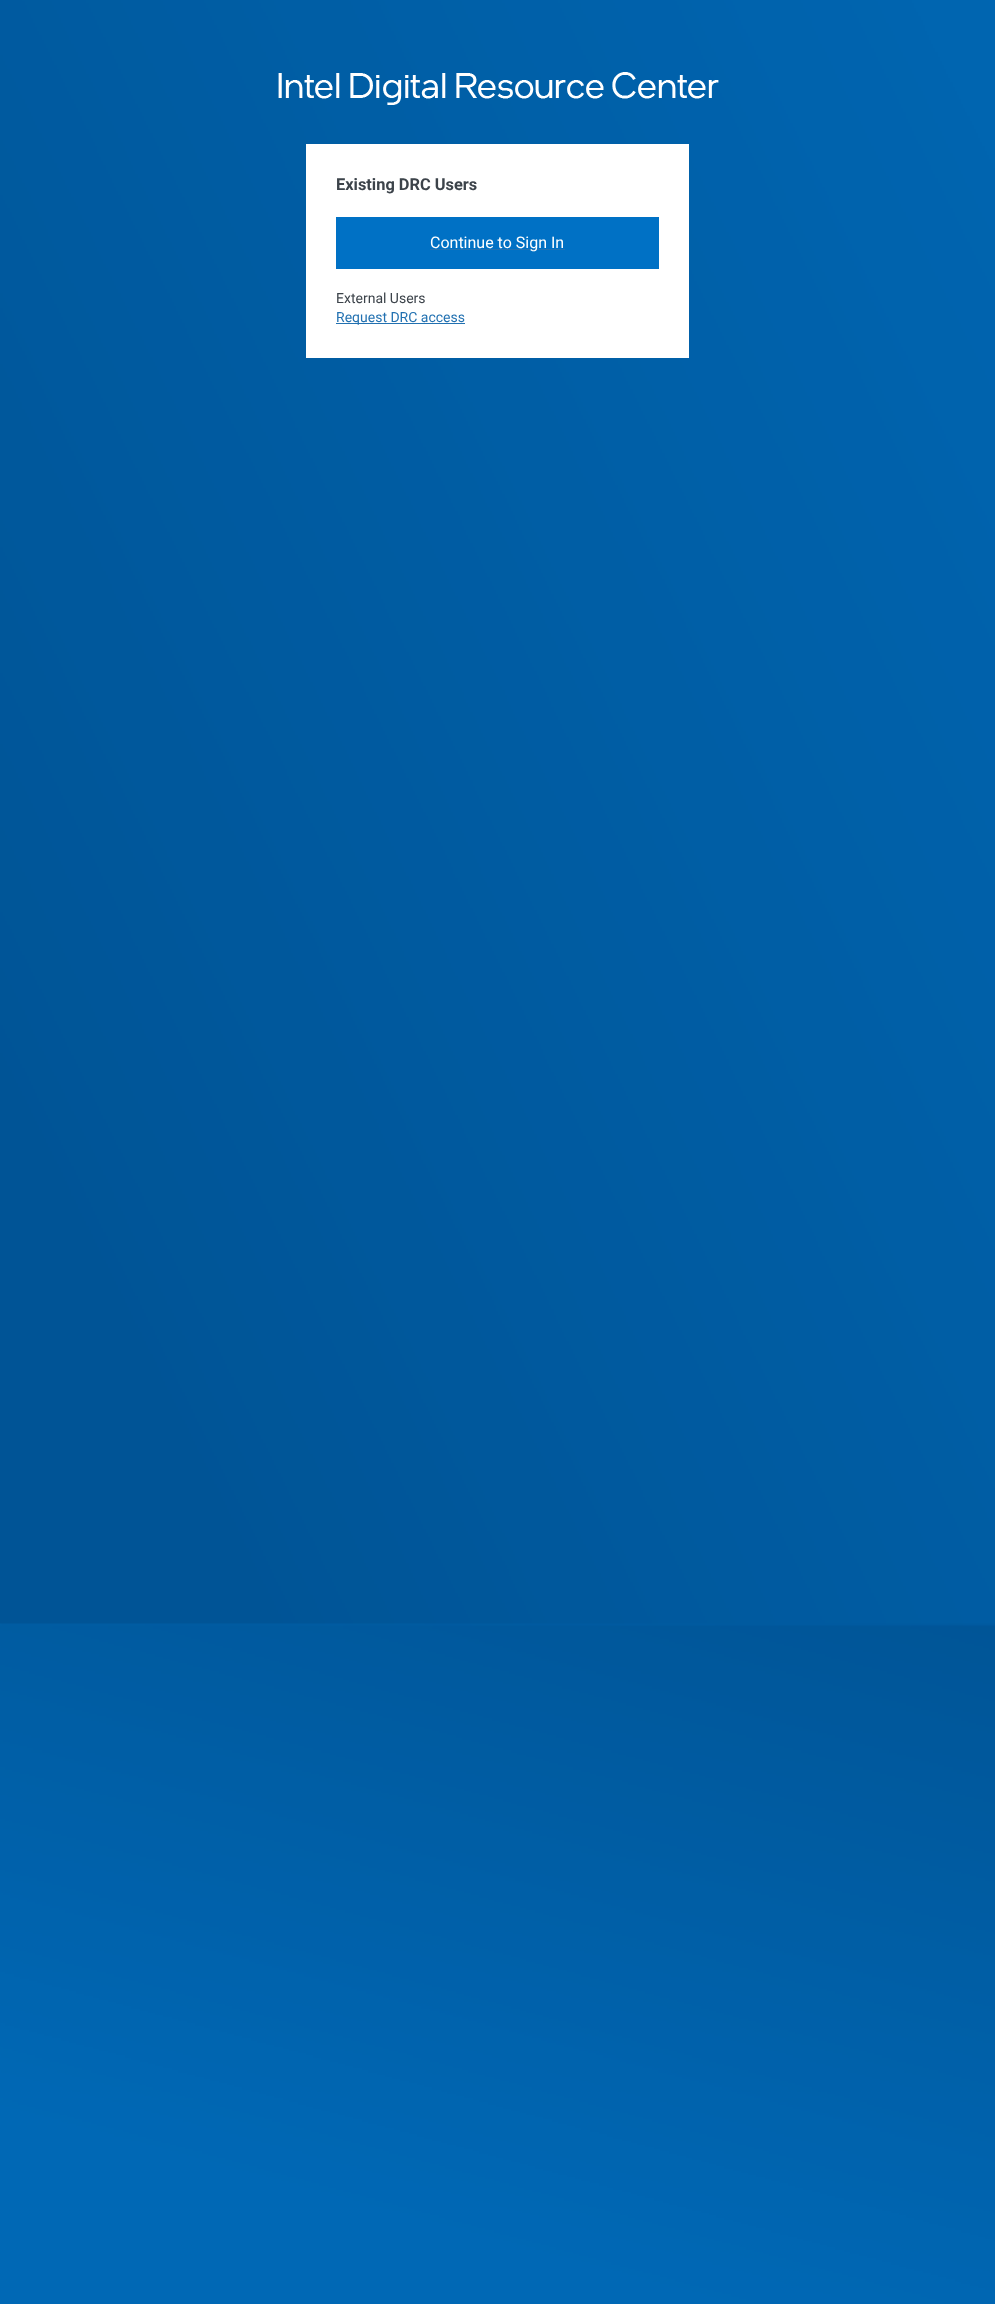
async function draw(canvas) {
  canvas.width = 995
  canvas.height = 2304
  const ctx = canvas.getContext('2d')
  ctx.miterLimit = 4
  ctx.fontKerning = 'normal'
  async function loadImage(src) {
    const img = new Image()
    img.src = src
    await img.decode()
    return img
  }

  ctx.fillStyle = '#fff'
  ctx.fillRect(0, 0, 995, 2304)
  ctx.drawImage(await loadImage('image0.png'), 0, 0, 995, 2304)
  ctx.drawImage(await loadImage('image1.png'), 278, 72, 441, 33)
  ctx.fillRect(306, 144, 383, 214)
  ctx.font = 'bold 16.4px Roboto'
  ctx.fillStyle = '#3c434a'
  ctx.fillText('Existing DRC Users', 336, 190)
  ctx.fillStyle = '#0071c5'
  ctx.fillRect(336, 217, 323, 52)
  ctx.fillStyle = '#2271b1'
  ctx.fillRect(430, 249, 135, 1)
  ctx.font = '16px Roboto'
  ctx.fillStyle = '#fff'
  ctx.fillText('Continue to Sign In', 430, 248)
  ctx.font = '14px Roboto'
  ctx.fillStyle = '#3c434a'
  ctx.fillText('External Users', 336, 303)
  ctx.fillStyle = '#2271b1'
  ctx.fillRect(336, 323, 129, 1)
  ctx.fillText('Request DRC access', 336, 322)
}

draw(document.querySelector('canvas'))
